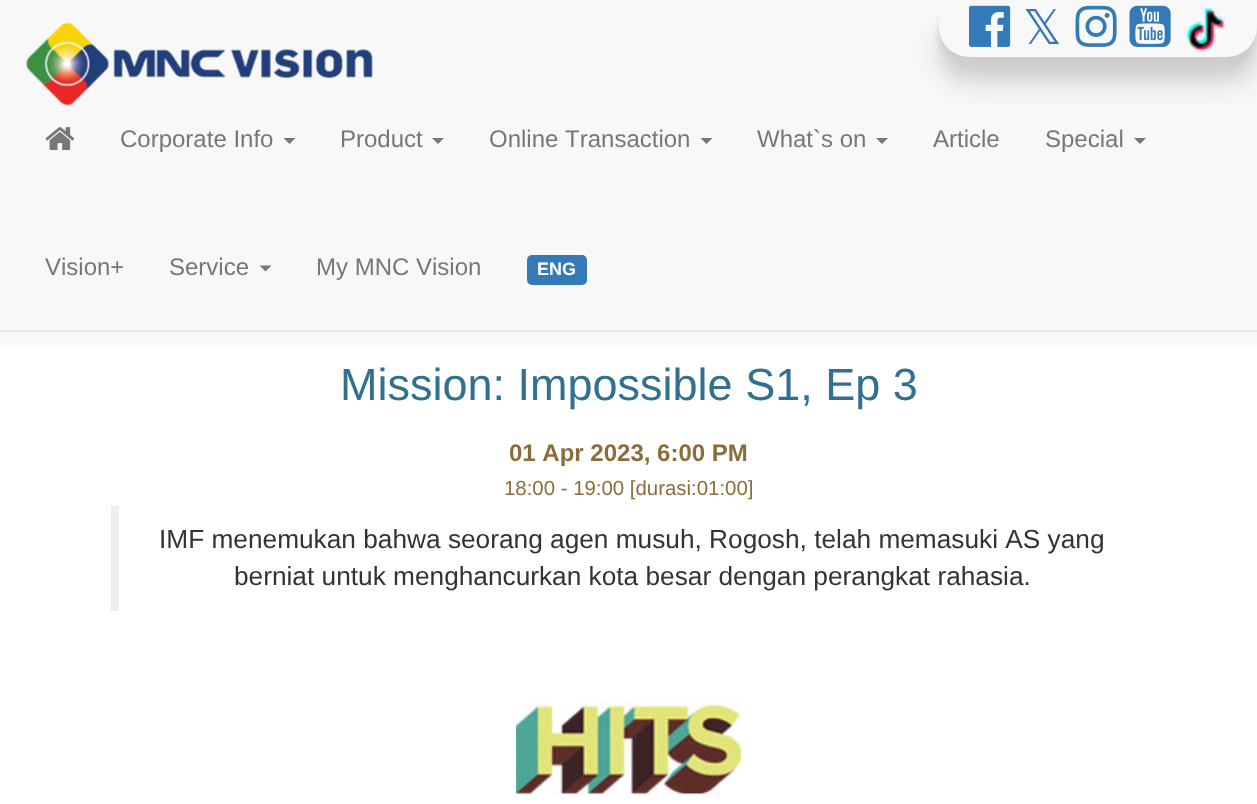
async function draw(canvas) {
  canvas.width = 1257
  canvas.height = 804
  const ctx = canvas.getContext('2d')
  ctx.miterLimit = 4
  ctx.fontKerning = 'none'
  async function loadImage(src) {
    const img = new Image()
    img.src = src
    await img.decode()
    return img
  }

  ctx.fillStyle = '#fff'
  ctx.fillRect(0, 0, 1257, 804)
  ctx.fillStyle = '#f8f8f8'
  ctx.fillRect(0, 0, 1257, 330)
  ctx.fillStyle = '#e7e7e7'
  ctx.fillRect(0, 330, 1257, 2)
  ctx.drawImage(await loadImage('image0.png'), 26, 22, 347, 84)
  ctx.save()
  ctx.beginPath()
  ctx.moveTo(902, 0)
  ctx.lineTo(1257, 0)
  ctx.lineTo(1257, 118)
  ctx.lineTo(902, 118)
  ctx.closePath()
  ctx.moveTo(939, 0)
  ctx.lineTo(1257, 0)
  ctx.lineTo(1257, 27)
  ctx.bezierCurveTo(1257, 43.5, 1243.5, 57, 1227, 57)
  ctx.lineTo(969, 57)
  ctx.bezierCurveTo(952.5, 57, 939, 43.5, 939, 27)
  ctx.closePath()
  ctx.clip('evenodd')
  ctx.fillStyle = '#ccc'
  ctx.filter = 'blur(12px)'
  ctx.beginPath()
  ctx.roundRect(939, 24, 318, 57, 30)
  ctx.fill()
  ctx.filter = 'none'
  ctx.restore()
  ctx.save()
  ctx.beginPath()
  ctx.moveTo(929, 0)
  ctx.lineTo(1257, 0)
  ctx.lineTo(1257, 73)
  ctx.lineTo(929, 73)
  ctx.closePath()
  ctx.moveTo(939, 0)
  ctx.lineTo(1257, 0)
  ctx.lineTo(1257, 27)
  ctx.bezierCurveTo(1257, 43.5, 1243.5, 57, 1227, 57)
  ctx.lineTo(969, 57)
  ctx.bezierCurveTo(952.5, 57, 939, 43.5, 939, 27)
  ctx.closePath()
  ctx.clip('evenodd')
  ctx.fillStyle = '#ccc'
  ctx.filter = 'blur(3px)'
  ctx.beginPath()
  ctx.roundRect(939, 6, 318, 57, 30)
  ctx.fill()
  ctx.filter = 'none'
  ctx.restore()
  ctx.drawImage(await loadImage('image1.png'), 969, 5, 42, 42)
  ctx.font = '48px DejaVu Sans'
  ctx.fillStyle = '#337ab7'
  ctx.fillText('𝕏', 1023, 44)
  ctx.drawImage(await loadImage('image2.png'), 1075, 5, 42, 42)
  ctx.drawImage(await loadImage('image3.png'), 1129, 5, 42, 42)
  ctx.drawImage(await loadImage('image4.png'), 1186, 8, 39, 44)
  ctx.drawImage(await loadImage('image5.png'), 45, 127, 30, 23)
  ctx.font = '24px Liberation Sans'
  ctx.fillStyle = '#777'
  ctx.fillText('Corporate Info', 120, 147)
  ctx.beginPath()
  ctx.moveTo(283.5, 138)
  ctx.lineTo(295.5, 138)
  ctx.lineTo(289.5, 144)
  ctx.closePath()
  ctx.fill()
  ctx.fillText('Product', 340, 147)
  ctx.beginPath()
  ctx.moveTo(432, 138)
  ctx.lineTo(444, 138)
  ctx.lineTo(438, 144)
  ctx.closePath()
  ctx.fill()
  ctx.fillText('Online Transaction', 489, 147)
  ctx.beginPath()
  ctx.moveTo(700.5, 138)
  ctx.lineTo(712.5, 138)
  ctx.lineTo(706.5, 144)
  ctx.closePath()
  ctx.fill()
  ctx.fillText('What`s on', 757, 147)
  ctx.beginPath()
  ctx.moveTo(876, 138)
  ctx.lineTo(888, 138)
  ctx.lineTo(882, 144)
  ctx.closePath()
  ctx.fill()
  ctx.fillText('Article', 933, 147)
  ctx.fillText('Special', 1045, 147)
  ctx.beginPath()
  ctx.moveTo(1134, 138)
  ctx.lineTo(1146, 138)
  ctx.lineTo(1140, 144)
  ctx.closePath()
  ctx.fill()
  ctx.fillText('Vision+', 45, 275)
  ctx.fillText('Service', 169, 275)
  ctx.beginPath()
  ctx.moveTo(259.5, 265.5)
  ctx.lineTo(271.5, 265.5)
  ctx.lineTo(265.5, 271.5)
  ctx.closePath()
  ctx.fill()
  ctx.fillText('My MNC Vision', 316, 275)
  ctx.fillStyle = '#337ab7'
  ctx.beginPath()
  ctx.roundRect(527, 255, 60, 30, 5)
  ctx.fill()
  ctx.font = 'bold 18px Liberation Sans'
  ctx.fillStyle = '#fff'
  ctx.fillText('ENG', 537, 275)
  ctx.drawImage(await loadImage('image6.png'), 0, 332, 1257, 15)
  ctx.font = '45px Liberation Sans'
  ctx.fillStyle = '#31708f'
  ctx.fillText('Mission: Impossible S1, Ep 3', 340, 400)
  ctx.font = 'bold 24px Liberation Sans'
  ctx.fillStyle = '#8a6d3b'
  ctx.fillText('01 Apr 2023, 6:00 PM', 509, 461)
  ctx.font = '20.4px Liberation Sans'
  ctx.fillText('18:00 - 19:00 [durasi:01:00]', 504, 495)
  ctx.fillStyle = '#eee'
  ctx.fillRect(111, 506, 8, 105)
  ctx.font = '26.25px Liberation Sans'
  ctx.fillStyle = '#333'
  ctx.fillText('IMF menemukan bahwa seorang agen musuh, Rogosh, telah memasuki AS yang', 159, 548)
  ctx.fillText('berniat untuk menghancurkan kota besar dengan perangkat rahasia.', 234, 585)
  ctx.drawImage(await loadImage('image7.png'), 516, 700, 225, 97)
}

draw(document.querySelector('canvas'))
